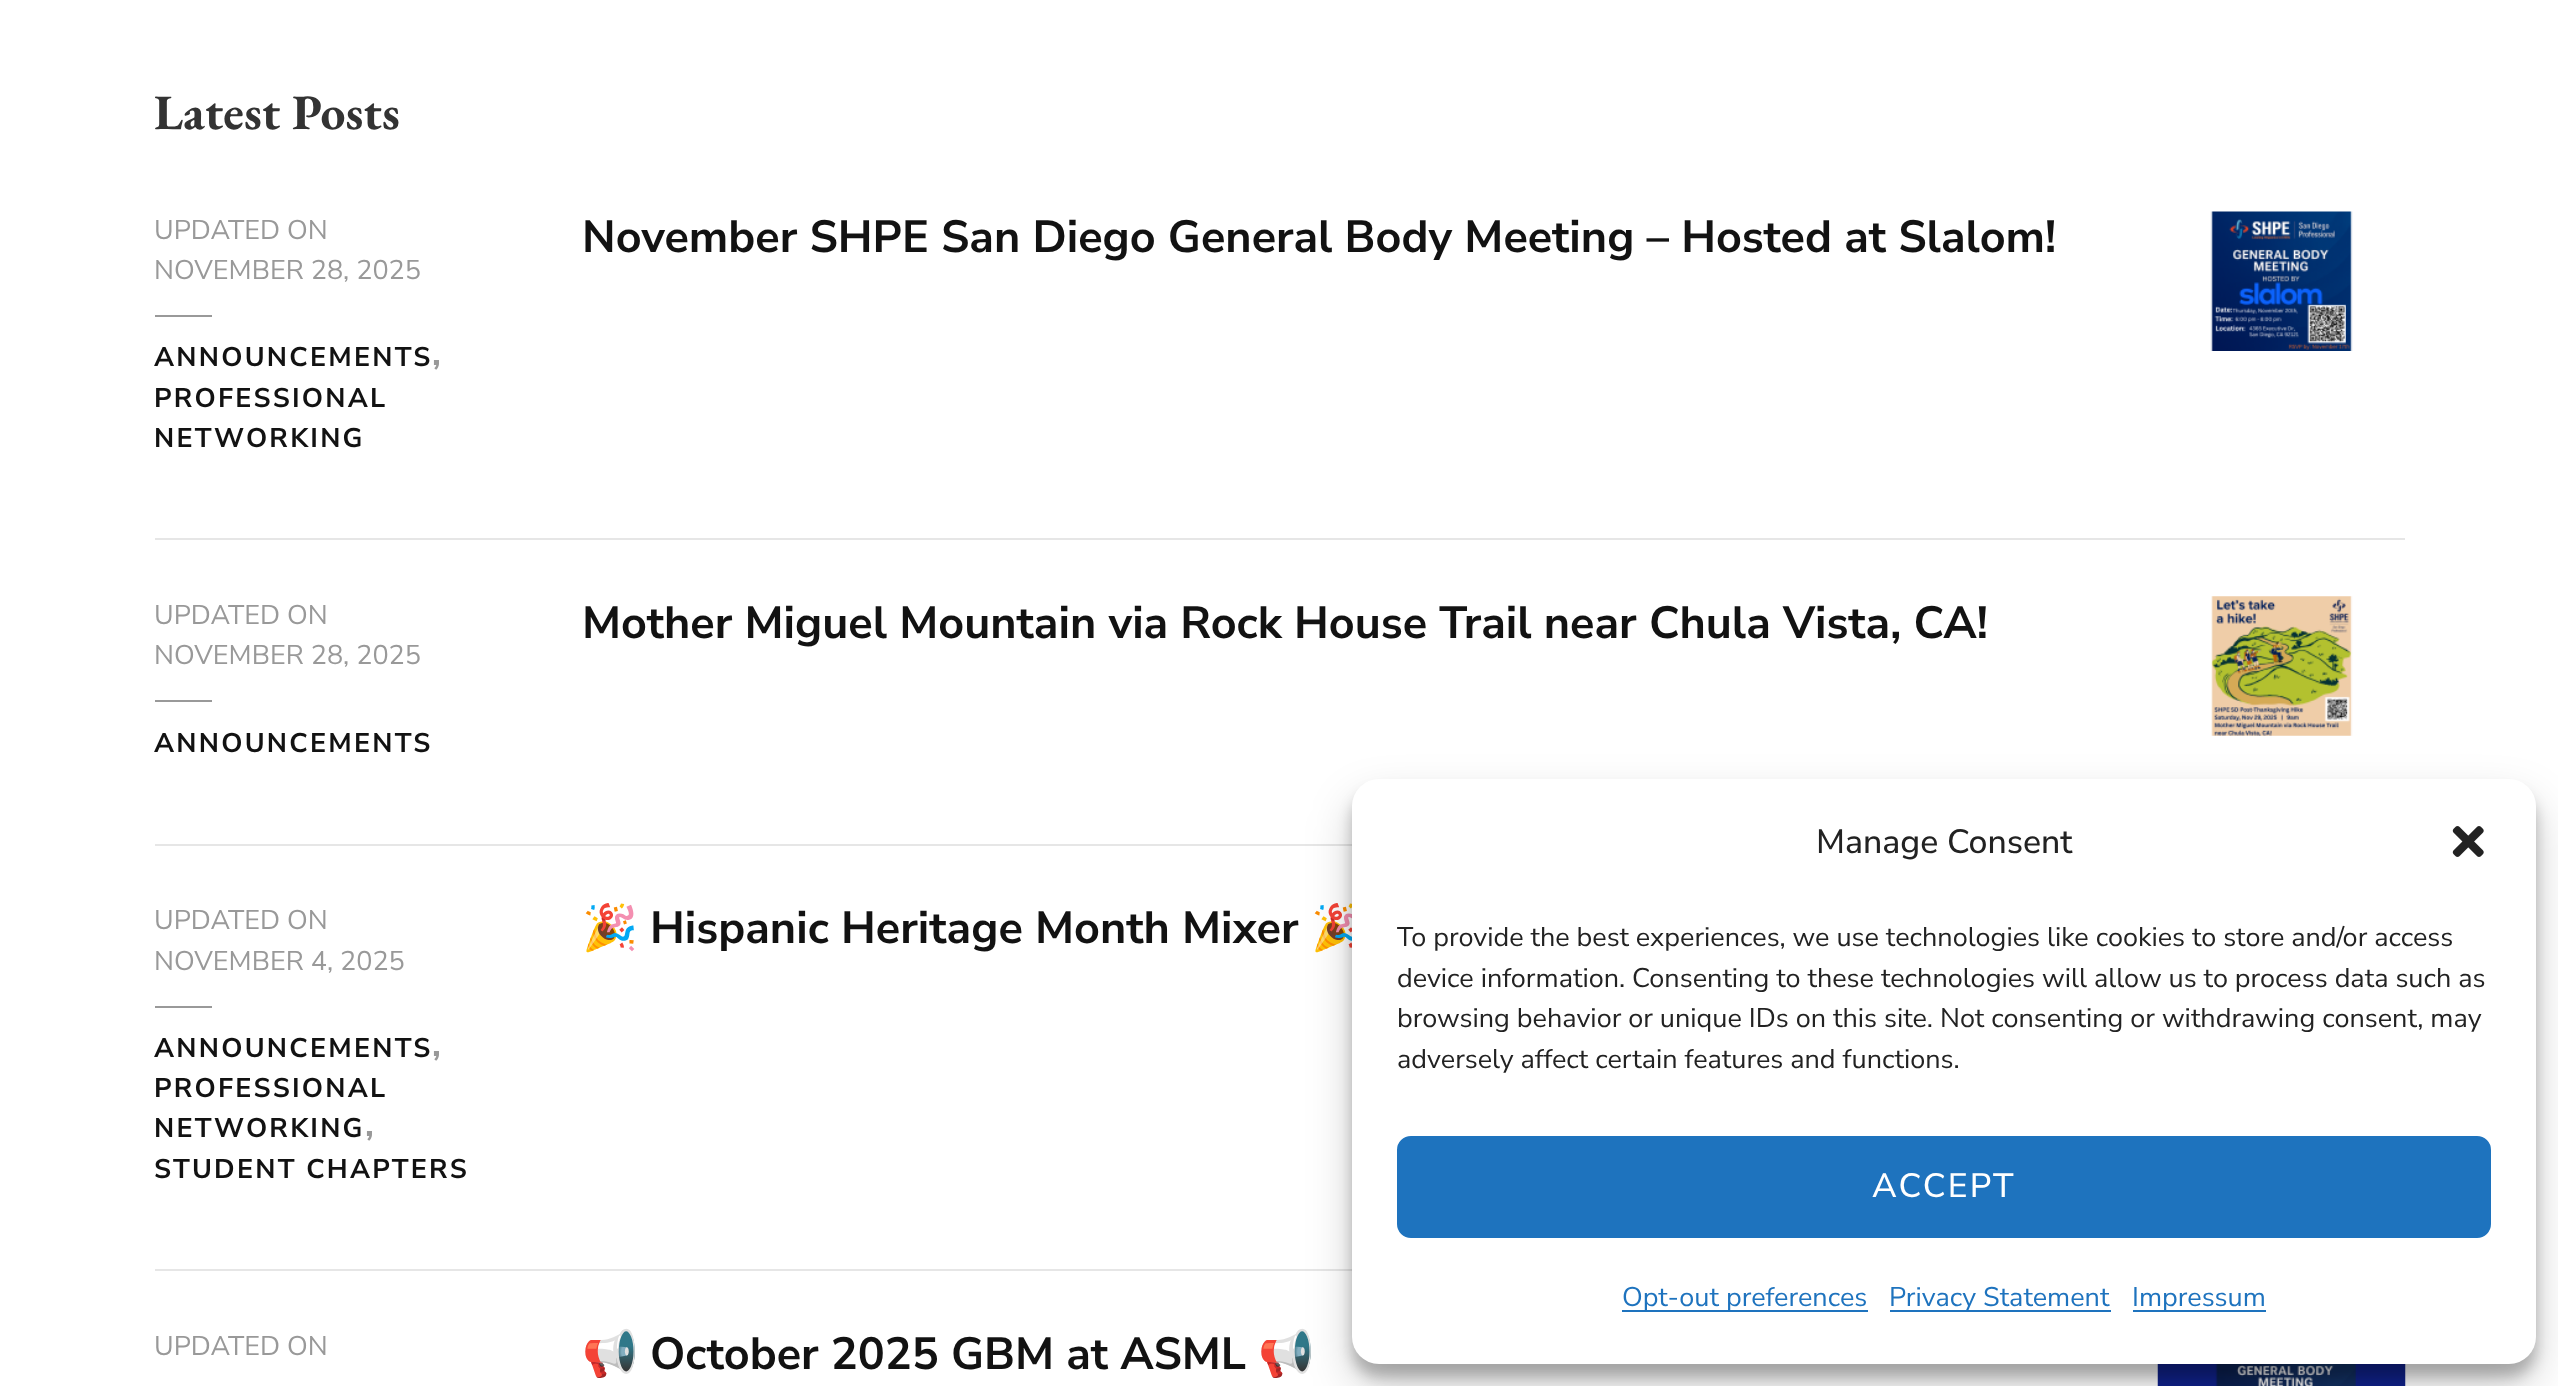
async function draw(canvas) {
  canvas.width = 2558
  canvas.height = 1386
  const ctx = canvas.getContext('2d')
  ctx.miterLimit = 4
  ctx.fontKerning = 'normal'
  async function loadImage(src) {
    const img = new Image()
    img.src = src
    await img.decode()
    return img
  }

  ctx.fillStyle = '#fff'
  ctx.fillRect(0, 0, 2558, 1386)
  ctx.font = 'bold 49.5px EB Garamond'
  ctx.fillStyle = '#333'
  ctx.fillText('Latest Posts', 154, 129)
  ctx.fillStyle = '#e6e6e6'
  ctx.fillRect(155, 538, 2250, 2)
  ctx.font = '27px Nunito Sans'
  ctx.fillStyle = '#999'
  ctx.fillText('UPDATED ON', 154, 239)
  ctx.fillText('NOVEMBER 28, 2025', 154, 279)
  ctx.fillRect(155, 315, 57, 2)
  ctx.letterSpacing = '2.25px'
  ctx.font = 'bold 27px Nunito Sans'
  ctx.fillStyle = '#121212'
  ctx.fillText('ANNOUNCEMENTS', 154, 366)
  ctx.font = 'bold 36px Nunito Sans'
  ctx.fillStyle = '#999'
  ctx.fillText(',', 432, 365)
  ctx.font = 'bold 27px Nunito Sans'
  ctx.fillStyle = '#121212'
  ctx.fillText('PROFESSIONAL', 154, 407)
  ctx.fillText('NETWORKING', 154, 447)
  ctx.letterSpacing = '0px'
  ctx.font = 'bold 45px Nunito Sans'
  ctx.fillText('November SHPE San Diego General Body Meeting – Hosted at Slalom!', 582, 252)
  ctx.drawImage(await loadImage('image0.png'), 2210, 211, 143, 140)
  ctx.fillStyle = '#e6e6e6'
  ctx.fillRect(155, 844, 1197, 2)
  ctx.font = '27px Nunito Sans'
  ctx.fillStyle = '#999'
  ctx.fillText('UPDATED ON', 154, 624)
  ctx.fillText('NOVEMBER 28, 2025', 154, 664)
  ctx.fillRect(155, 700, 57, 2)
  ctx.letterSpacing = '2.25px'
  ctx.font = 'bold 27px Nunito Sans'
  ctx.fillStyle = '#121212'
  ctx.fillText('ANNOUNCEMENTS', 154, 752)
  ctx.letterSpacing = '0px'
  ctx.font = 'bold 45px Nunito Sans'
  ctx.fillText('Mother Miguel Mountain via Rock House Trail near Chula Vista, CA!', 582, 638)
  ctx.drawImage(await loadImage('image1.png'), 2211, 596, 142, 140)
  ctx.fillStyle = '#e6e6e6'
  ctx.fillRect(155, 1269, 1197, 2)
  ctx.font = '27px Nunito Sans'
  ctx.fillStyle = '#999'
  ctx.fillText('UPDATED ON', 154, 929)
  ctx.fillText('NOVEMBER 4, 2025', 154, 970)
  ctx.fillRect(155, 1006, 57, 2)
  ctx.letterSpacing = '2.25px'
  ctx.font = 'bold 27px Nunito Sans'
  ctx.fillStyle = '#121212'
  ctx.fillText('ANNOUNCEMENTS', 154, 1057)
  ctx.font = 'bold 36px Nunito Sans'
  ctx.fillStyle = '#999'
  ctx.fillText(',', 432, 1056)
  ctx.font = 'bold 27px Nunito Sans'
  ctx.fillStyle = '#121212'
  ctx.fillText('PROFESSIONAL', 154, 1097)
  ctx.fillText('NETWORKING', 154, 1137)
  ctx.font = 'bold 36px Nunito Sans'
  ctx.fillStyle = '#999'
  ctx.fillText(',', 365, 1136)
  ctx.font = 'bold 27px Nunito Sans'
  ctx.fillStyle = '#121212'
  ctx.fillText('STUDENT CHAPTERS', 154, 1178)
  ctx.letterSpacing = '0px'
  ctx.font = 'bold 45px Noto Color Emoji'
  ctx.fillText('🎉', 582, 943)
  ctx.font = 'bold 45px Nunito Sans'
  ctx.fillText('Hispanic Heritage Month Mixer', 650, 943)
  ctx.font = 'bold 45px Noto Color Emoji'
  ctx.fillText('🎉', 1311, 943)
  ctx.font = '27px Nunito Sans'
  ctx.fillStyle = '#999'
  ctx.fillText('UPDATED ON', 154, 1355)
  ctx.font = 'bold 45px Noto Color Emoji'
  ctx.fillStyle = '#121212'
  ctx.fillText('📢', 582, 1369)
  ctx.font = 'bold 45px Nunito Sans'
  ctx.fillText('October 2025 GBM at ASML', 650, 1369)
  ctx.font = 'bold 45px Noto Color Emoji'
  ctx.fillText('📢', 1258, 1369)
  ctx.drawImage(await loadImage('image2.png'), 2157, 1364, 249, 22)
  ctx.fillStyle = '#0000003b'
  ctx.filter = 'blur(7px)'
  ctx.beginPath()
  ctx.roundRect(1352, 792, 1184, 585, 27)
  ctx.fill()
  ctx.filter = 'none'
  ctx.fillStyle = '#00000030'
  ctx.filter = 'blur(22.5px)'
  ctx.beginPath()
  ctx.roundRect(1352, 801, 1184, 585, 27)
  ctx.fill()
  ctx.filter = 'none'
  ctx.fillStyle = '#fff'
  ctx.beginPath()
  ctx.roundRect(1352, 779, 1184, 585, 27)
  ctx.fill()
  ctx.font = '500 33.75px Nunito Sans'
  ctx.fillStyle = '#222'
  ctx.fillText('Manage Consent', 1816, 853)
  ctx.drawImage(await loadImage('image3.png'), 2452, 826, 32, 31)
  ctx.font = '27px Nunito Sans'
  ctx.fillText('To provide the best experiences, we use technologies like cookies to store and/or access', 1397, 946)
  ctx.fillText('device information. Consenting to these technologies will allow us to process data such as', 1397, 987)
  ctx.fillText('browsing behavior or unique IDs on this site. Not consenting or withdrawing consent, may', 1397, 1027)
  ctx.fillText('adversely affect certain features and functions.', 1397, 1068)
  ctx.fillStyle = '#1e73be'
  ctx.beginPath()
  ctx.roundRect(1398, 1137, 1092, 100, 13)
  ctx.fill()
  ctx.strokeStyle = '#1e73be'
  ctx.lineWidth = 2
  ctx.stroke()
  ctx.letterSpacing = '2.25px'
  ctx.font = '500 33.75px Nunito Sans'
  ctx.fillStyle = '#fff'
  ctx.fillText('ACCEPT', 1872, 1197)
  ctx.fillStyle = '#1e73be'
  ctx.fillRect(1622, 1310, 246, 2)
  ctx.letterSpacing = '0px'
  ctx.font = '27px Nunito Sans'
  ctx.fillText('Opt-out preferences', 1622, 1306)
  ctx.fillRect(1890, 1310, 221, 2)
  ctx.fillText('Privacy Statement', 1889, 1306)
  ctx.fillRect(2133, 1310, 133, 2)
  ctx.fillText('Impressum', 2132, 1306)
}

draw(document.querySelector('canvas'))
